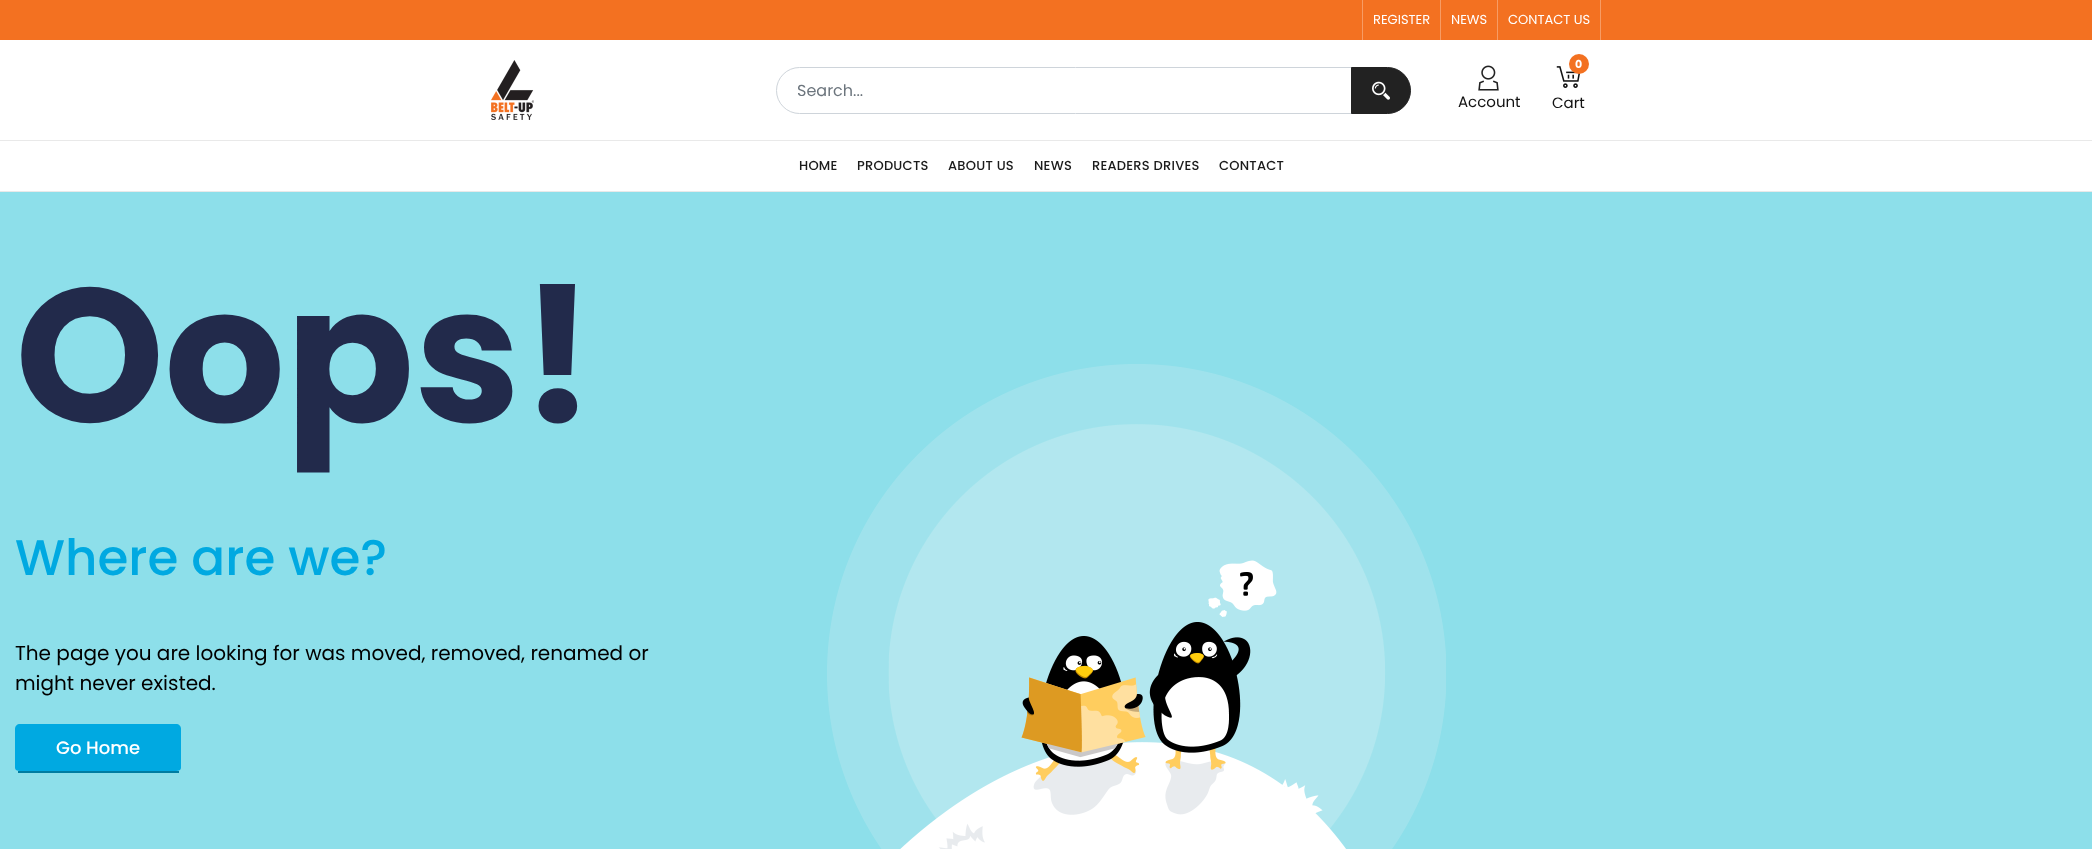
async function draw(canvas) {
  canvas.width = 2092
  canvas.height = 849
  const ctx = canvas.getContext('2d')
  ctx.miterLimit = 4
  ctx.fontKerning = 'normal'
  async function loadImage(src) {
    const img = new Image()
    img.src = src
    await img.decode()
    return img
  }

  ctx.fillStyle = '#fff'
  ctx.fillRect(0, 0, 2092, 849)
  ctx.fillStyle = '#f37121'
  ctx.fillRect(0, 0, 2092, 40)
  ctx.fillStyle = '#f79c64'
  ctx.fillRect(1600, 0, 1, 40)
  ctx.fillRect(1440, 0, 1, 40)
  ctx.fillRect(1362, 0, 1, 40)
  ctx.font = '13px Poppins'
  ctx.fillStyle = '#fff'
  ctx.fillText('REGISTER', 1373, 24)
  ctx.fillStyle = '#f79c64'
  ctx.fillRect(1497, 0, 1, 40)
  ctx.fillStyle = '#fff'
  ctx.fillText('NEWS', 1451, 24)
  ctx.fillText('CONTACT US', 1508, 24)
  ctx.drawImage(await loadImage('image0.png'), 491, 60, 43, 60)
  ctx.beginPath()
  ctx.roundRect(776.5, 67.5, 575, 46, [23, 0, 0, 23])
  ctx.strokeStyle = '#ced4da'
  ctx.stroke()
  ctx.font = '16px Poppins'
  ctx.fillStyle = '#6c757d'
  ctx.fillText('Search...', 797, 96)
  ctx.fillStyle = '#222'
  ctx.beginPath()
  ctx.roundRect(1351.5, 67.5, 59, 46, [0, 23, 23, 0])
  ctx.fill()
  ctx.strokeStyle = '#222'
  ctx.stroke()
  ctx.drawImage(await loadImage('image1.png'), 1372, 81, 18, 19)
  ctx.drawImage(await loadImage('image2.png'), 1478, 65, 21, 26)
  ctx.font = '15px Poppins'
  ctx.fillStyle = '#121212'
  ctx.fillText('Account', 1458, 107)
  ctx.drawImage(await loadImage('image3.png'), 1556, 66, 25, 22)
  ctx.fillStyle = '#f37121'
  ctx.beginPath()
  ctx.arc(1579, 64, 10, 0, 2 * Math.PI)
  ctx.fill()
  ctx.font = 'bold 11px Poppins'
  ctx.fillStyle = '#fff'
  ctx.fillText('0', 1575, 68)
  ctx.font = '15px Poppins'
  ctx.fillStyle = '#121212'
  ctx.fillText('Cart', 1552, 108)
  ctx.fillStyle = '#e9e9e9'
  ctx.fillRect(0, 140, 2092, 1)
  ctx.fillRect(0, 191, 2092, 1)
  ctx.letterSpacing = '0.25px'
  ctx.font = '500 13px Poppins'
  ctx.fillStyle = '#1b1b1b'
  ctx.fillText('HOME', 799, 170)
  ctx.fillText('PRODUCTS', 857, 170)
  ctx.fillText('ABOUT US', 948, 170)
  ctx.fillText('NEWS', 1034, 170)
  ctx.fillText('READERS DRIVES', 1092, 170)
  ctx.fillText('CONTACT', 1219, 170)
  ctx.fillStyle = '#8ddfea'
  ctx.fillRect(0, 192, 2092, 657)
  ctx.drawImage(await loadImage('image4.png'), 827, 364, 619, 485)
  ctx.letterSpacing = '0px'
  ctx.font = 'bold 190px Poppins'
  ctx.fillStyle = '#222a4b'
  ctx.fillText('Oops!', 15, 422)
  ctx.font = '500 50px Poppins'
  ctx.fillStyle = '#00a9e1'
  ctx.fillText('Where are we?', 15, 575)
  ctx.font = '20px Poppins'
  ctx.fillStyle = '#000'
  ctx.fillText('The page you are looking for was moved, removed, renamed or', 15, 660)
  ctx.fillText('might never existed.', 15, 690)
  ctx.fillStyle = '#00a9e1'
  ctx.beginPath()
  ctx.moveTo(20, 724)
  ctx.lineTo(176, 724)
  ctx.bezierCurveTo(179, 724, 181, 726, 181, 729)
  ctx.lineTo(181, 768)
  ctx.bezierCurveTo(181, 770, 179, 771, 176, 771)
  ctx.lineTo(20, 771)
  ctx.bezierCurveTo(17, 771, 15, 770, 15, 768)
  ctx.lineTo(15, 729)
  ctx.bezierCurveTo(15, 726, 17, 724, 20, 724)
  ctx.closePath()
  ctx.fill()
  ctx.fillStyle = '#007ca1'
  ctx.fillRect(18, 771, 161, 2)
  ctx.font = '500 18px Poppins'
  ctx.fillStyle = '#fff'
  ctx.fillText('Go Home', 56, 754)
}

draw(document.querySelector('canvas'))
